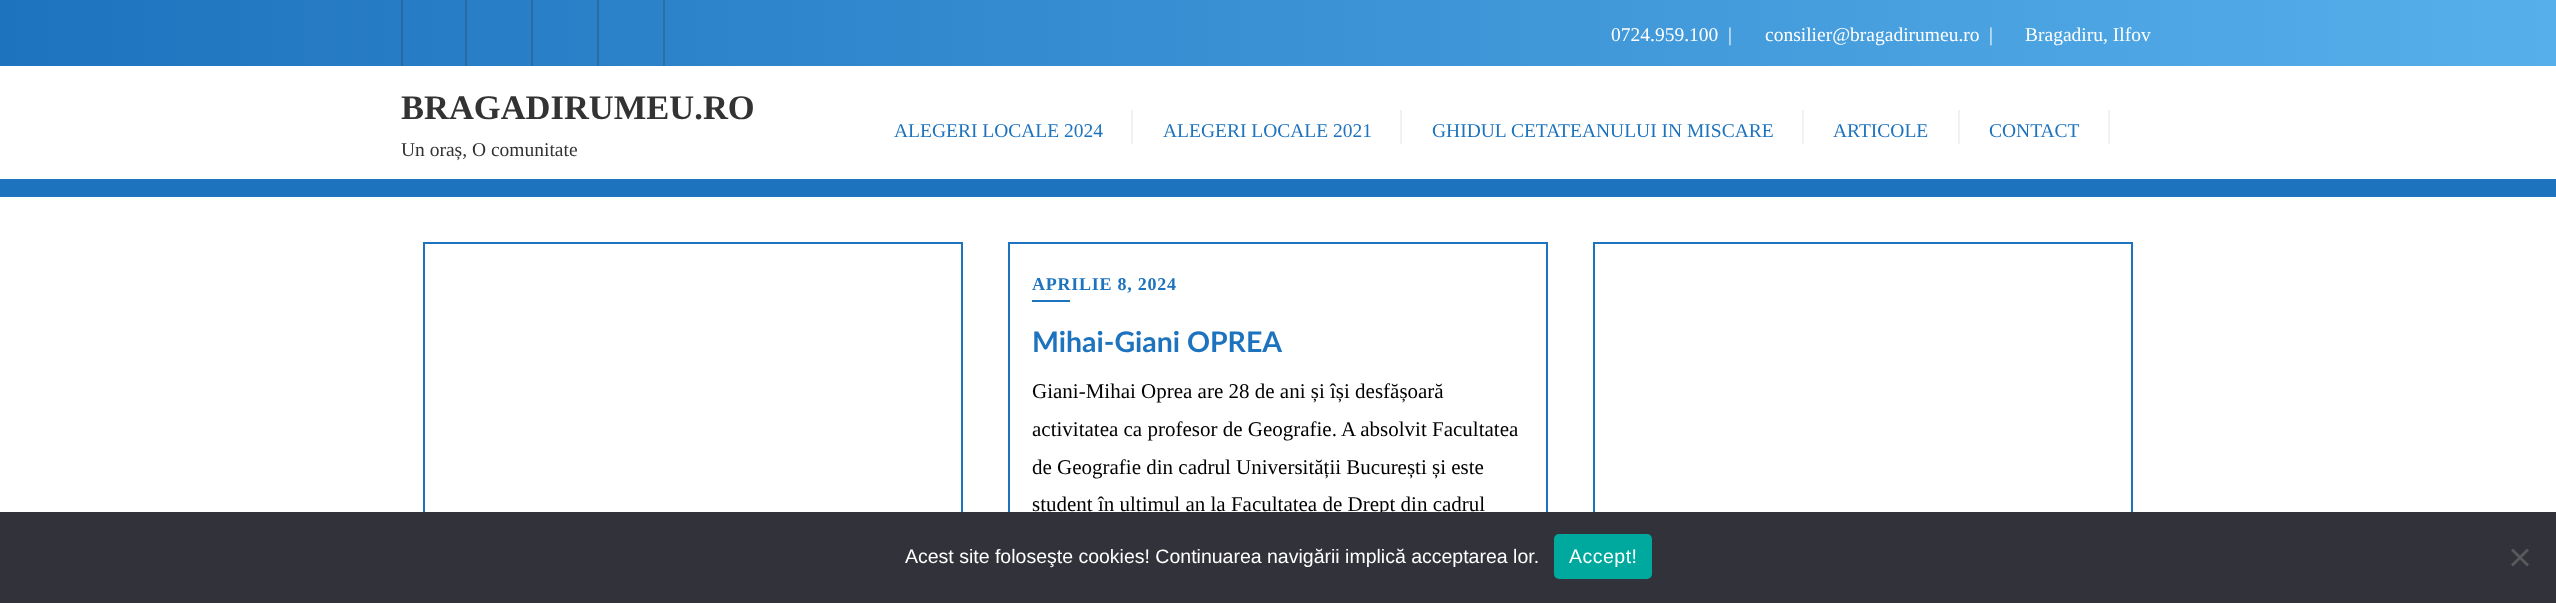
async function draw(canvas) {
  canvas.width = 2556
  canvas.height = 603
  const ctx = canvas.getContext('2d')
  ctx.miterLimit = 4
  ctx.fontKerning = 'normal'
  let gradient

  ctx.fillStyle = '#fff'
  ctx.fillRect(0, 0, 2556, 603)
  ctx.fillStyle = '#1e73be'
  ctx.fillRect(0, 179, 2556, 18)
  gradient = ctx.createLinearGradient(0, 33, 2556, 33)
  gradient.addColorStop(0, '#1e73be')
  gradient.addColorStop(1, '#56afea')
  ctx.fillStyle = gradient
  ctx.fillRect(0, 0, 2556, 66)
  ctx.fillStyle = '#286ba3'
  ctx.fillRect(465, 0, 2, 66)
  ctx.fillStyle = '#2769a2'
  ctx.fillRect(401, 0, 2, 66)
  ctx.fillStyle = '#296ba4'
  ctx.fillRect(531, 0, 2, 66)
  ctx.fillStyle = '#2a6da4'
  ctx.fillRect(597, 0, 2, 66)
  ctx.fillStyle = '#2b6fa5'
  ctx.fillRect(663, 0, 2, 66)
  ctx.font = '19.5px Liberation Serif'
  ctx.fillStyle = '#fff'
  ctx.fillText('0724.959.100', 1611, 41)
  ctx.fillText('|', 1728, 41)
  ctx.fillText('consilier@bragadirumeu.ro', 1765, 41)
  ctx.fillText('|', 1989, 41)
  ctx.fillText('Bragadiru, Ilfov', 2025, 41)
  ctx.font = 'bold 34.5px Liberation Serif'
  ctx.fillStyle = '#333'
  ctx.fillText('BRAGADIRUMEU.RO', 401, 119)
  ctx.font = '19.5px Liberation Serif'
  ctx.fillText('Un oraș, O comunitate', 401, 156)
  ctx.fillStyle = '#1e73be'
  ctx.fillText('ALEGERI LOCALE 2024', 894, 137)
  ctx.fillStyle = '#f1f1f1'
  ctx.fillRect(1131, 110, 2, 34)
  ctx.fillStyle = '#1e73be'
  ctx.fillText('ALEGERI LOCALE 2021', 1163, 137)
  ctx.fillStyle = '#f1f1f1'
  ctx.fillRect(1400, 110, 2, 34)
  ctx.fillStyle = '#1e73be'
  ctx.fillText('GHIDUL CETATEANULUI IN MISCARE', 1432, 137)
  ctx.fillStyle = '#f1f1f1'
  ctx.fillRect(1802, 110, 2, 34)
  ctx.fillStyle = '#1e73be'
  ctx.fillText('ARTICOLE', 1833, 137)
  ctx.fillStyle = '#f1f1f1'
  ctx.fillRect(1958, 110, 2, 34)
  ctx.fillStyle = '#1e73be'
  ctx.fillText('CONTACT', 1989, 137)
  ctx.fillStyle = '#f1f1f1'
  ctx.fillRect(2108, 110, 2, 34)
  ctx.strokeStyle = '#1e73be'
  ctx.lineWidth = 2
  ctx.strokeRect(424, 243, 538, 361)
  ctx.strokeRect(1009, 243, 538, 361)
  ctx.letterSpacing = '0.75px'
  ctx.font = 'bold 18px Liberation Serif'
  ctx.fillStyle = '#1e73be'
  ctx.fillText('APRILIE 8, 2024', 1032, 290)
  ctx.fillRect(1032, 300, 38, 2)
  ctx.letterSpacing = '0px'
  ctx.font = 'bold 28.5px Lato'
  ctx.fillText('Mihai-Giani OPREA', 1032, 352)
  ctx.font = '21px Liberation Serif'
  ctx.fillStyle = '#000'
  ctx.fillText('Giani-Mihai Oprea are 28 de ani și își desfășoară', 1032, 398)
  ctx.fillText('activitatea ca profesor de Geografie. A absolvit Facultatea', 1032, 436)
  ctx.fillText('de Geografie din cadrul Universității București și este', 1032, 474)
  ctx.fillText('student în ultimul an la Facultatea de Drept din cadrul', 1032, 511)
  ctx.strokeRect(1594, 243, 538, 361)
  ctx.fillStyle = '#32323a'
  ctx.fillRect(0, 512, 2556, 91)
  ctx.font = '19.5px Liberation Sans'
  ctx.fillStyle = '#fff'
  ctx.fillText('Acest site foloseşte cookies! Continuarea navigării implică acceptarea lor.', 905, 563)
  ctx.fillStyle = '#00a99d'
  ctx.beginPath()
  ctx.roundRect(1554, 534, 98, 45, 5)
  ctx.fill()
  ctx.letterSpacing = '0.5px'
  ctx.fillStyle = '#fff'
  ctx.fillText('Accept!', 1569, 563)
  ctx.fillStyle = '#59595d'
  ctx.beginPath()
  ctx.moveTo(2527, 548.5)
  ctx.lineTo(2529, 550.5)
  ctx.lineTo(2513, 566.5)
  ctx.lineTo(2511, 564.5)
  ctx.closePath()
  ctx.fill()
  ctx.beginPath()
  ctx.moveTo(2511, 550.5)
  ctx.lineTo(2513, 548.5)
  ctx.lineTo(2529, 564.5)
  ctx.lineTo(2527, 566.5)
  ctx.closePath()
  ctx.fill()
}

draw(document.querySelector('canvas'))
